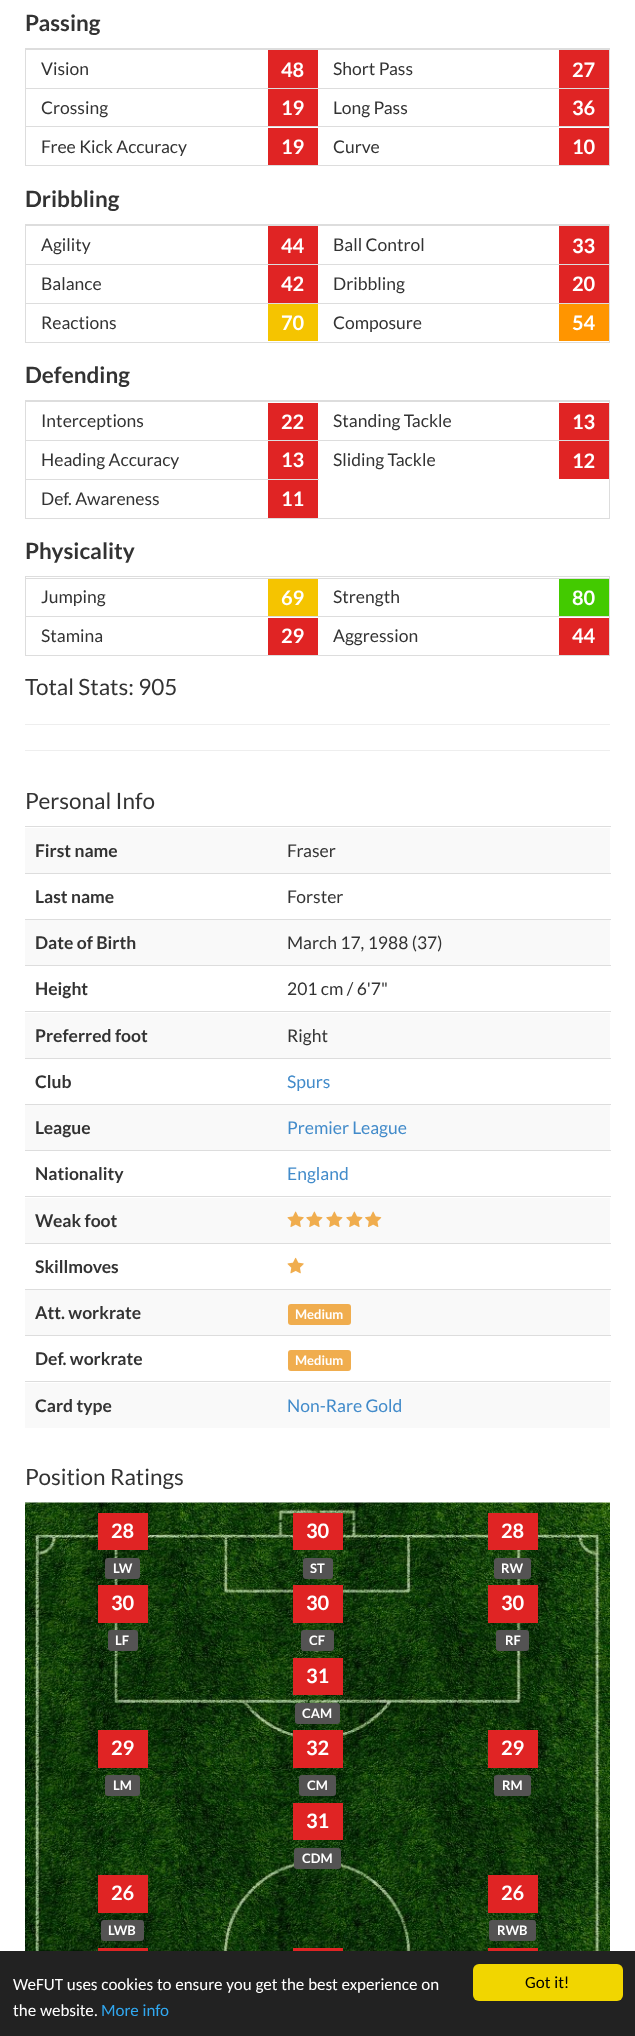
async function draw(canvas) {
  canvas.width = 635
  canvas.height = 2036
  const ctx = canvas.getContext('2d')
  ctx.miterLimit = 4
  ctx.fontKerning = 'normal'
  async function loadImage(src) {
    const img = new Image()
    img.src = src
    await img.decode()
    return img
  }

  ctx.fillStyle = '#fff'
  ctx.fillRect(0, 0, 635, 2036)
  ctx.font = 'bold 22.5px Lato'
  ctx.fillStyle = '#333'
  ctx.fillText('Passing', 25, 31)
  ctx.strokeStyle = '#ddd'
  ctx.strokeRect(25.5, 48.5, 584, 117)
  ctx.font = '17.5px Lato'
  ctx.fillText('Vision', 41, 75)
  ctx.fillStyle = '#e02424'
  ctx.fillRect(268, 50, 50, 38)
  ctx.font = 'bold 20px Lato'
  ctx.fillStyle = '#fff'
  ctx.fillText('48', 281, 77)
  ctx.font = '17.5px Lato'
  ctx.fillStyle = '#333'
  ctx.fillText('Short Pass', 333, 75)
  ctx.fillStyle = '#ddd'
  ctx.fillRect(26, 49, 583, 1)
  ctx.fillStyle = '#e02424'
  ctx.fillRect(559, 50, 50, 38)
  ctx.font = 'bold 20px Lato'
  ctx.fillStyle = '#fff'
  ctx.fillText('27', 572, 77)
  ctx.font = '17.5px Lato'
  ctx.fillStyle = '#333'
  ctx.fillText('Crossing', 41, 114)
  ctx.fillStyle = '#e02424'
  ctx.fillRect(268, 89, 50, 37)
  ctx.font = 'bold 20px Lato'
  ctx.fillStyle = '#fff'
  ctx.fillText('19', 281, 115)
  ctx.font = '17.5px Lato'
  ctx.fillStyle = '#333'
  ctx.fillText('Long Pass', 333, 114)
  ctx.fillStyle = '#ddd'
  ctx.fillRect(26, 88, 583, 1)
  ctx.fillStyle = '#e02424'
  ctx.fillRect(559, 89, 50, 37)
  ctx.font = 'bold 20px Lato'
  ctx.fillStyle = '#fff'
  ctx.fillText('36', 572, 115)
  ctx.font = '17.5px Lato'
  ctx.fillStyle = '#333'
  ctx.fillText('Free Kick Accuracy', 41, 153)
  ctx.fillStyle = '#e02424'
  ctx.fillRect(268, 128, 50, 37)
  ctx.font = 'bold 20px Lato'
  ctx.fillStyle = '#fff'
  ctx.fillText('19', 281, 154)
  ctx.font = '17.5px Lato'
  ctx.fillStyle = '#333'
  ctx.fillText('Curve', 333, 153)
  ctx.fillStyle = '#ddd'
  ctx.fillRect(26, 126, 583, 1)
  ctx.fillStyle = '#e02424'
  ctx.fillRect(559, 128, 50, 37)
  ctx.font = 'bold 20px Lato'
  ctx.fillStyle = '#fff'
  ctx.fillText('10', 572, 154)
  ctx.font = 'bold 22.5px Lato'
  ctx.fillStyle = '#333'
  ctx.fillText('Dribbling', 25, 207)
  ctx.strokeRect(25.5, 224.5, 584, 118)
  ctx.font = '17.5px Lato'
  ctx.fillText('Agility', 41, 251)
  ctx.fillStyle = '#e02424'
  ctx.fillRect(268, 226, 50, 38)
  ctx.font = 'bold 20px Lato'
  ctx.fillStyle = '#fff'
  ctx.fillText('44', 281, 253)
  ctx.font = '17.5px Lato'
  ctx.fillStyle = '#333'
  ctx.fillText('Ball Control', 333, 251)
  ctx.fillStyle = '#ddd'
  ctx.fillRect(26, 225, 583, 1)
  ctx.fillStyle = '#e02424'
  ctx.fillRect(559, 226, 50, 38)
  ctx.font = 'bold 20px Lato'
  ctx.fillStyle = '#fff'
  ctx.fillText('33', 572, 253)
  ctx.font = '17.5px Lato'
  ctx.fillStyle = '#333'
  ctx.fillText('Balance', 41, 290)
  ctx.fillStyle = '#e02424'
  ctx.fillRect(268, 265, 50, 38)
  ctx.font = 'bold 20px Lato'
  ctx.fillStyle = '#fff'
  ctx.fillText('42', 281, 291)
  ctx.font = '17.5px Lato'
  ctx.fillStyle = '#333'
  ctx.fillText('Dribbling', 333, 290)
  ctx.fillStyle = '#ddd'
  ctx.fillRect(26, 264, 583, 1)
  ctx.fillStyle = '#e02424'
  ctx.fillRect(559, 265, 50, 38)
  ctx.font = 'bold 20px Lato'
  ctx.fillStyle = '#fff'
  ctx.fillText('20', 572, 291)
  ctx.font = '17.5px Lato'
  ctx.fillStyle = '#333'
  ctx.fillText('Reactions', 41, 329)
  ctx.fillStyle = '#f5c400'
  ctx.fillRect(268, 304, 50, 37)
  ctx.font = 'bold 20px Lato'
  ctx.fillStyle = '#fff'
  ctx.fillText('70', 281, 330)
  ctx.font = '17.5px Lato'
  ctx.fillStyle = '#333'
  ctx.fillText('Composure', 333, 329)
  ctx.fillStyle = '#ddd'
  ctx.fillRect(26, 303, 583, 1)
  ctx.fillStyle = '#ff9500'
  ctx.fillRect(559, 304, 50, 37)
  ctx.font = 'bold 20px Lato'
  ctx.fillStyle = '#fff'
  ctx.fillText('54', 572, 330)
  ctx.font = 'bold 22.5px Lato'
  ctx.fillStyle = '#333'
  ctx.fillText('Defending', 25, 383)
  ctx.strokeRect(25.5, 400.5, 584, 118)
  ctx.font = '17.5px Lato'
  ctx.fillText('Interceptions', 41, 427)
  ctx.fillStyle = '#e02424'
  ctx.fillRect(268, 403, 50, 37)
  ctx.font = 'bold 20px Lato'
  ctx.fillStyle = '#fff'
  ctx.fillText('22', 281, 429)
  ctx.font = '17.5px Lato'
  ctx.fillStyle = '#333'
  ctx.fillText('Standing Tackle', 333, 427)
  ctx.fillStyle = '#ddd'
  ctx.fillRect(26, 401, 583, 1)
  ctx.fillStyle = '#e02424'
  ctx.fillRect(559, 403, 50, 37)
  ctx.font = 'bold 20px Lato'
  ctx.fillStyle = '#fff'
  ctx.fillText('13', 572, 429)
  ctx.font = '17.5px Lato'
  ctx.fillStyle = '#333'
  ctx.fillText('Heading Accuracy', 41, 466)
  ctx.fillStyle = '#e02424'
  ctx.fillRect(268, 441, 50, 38)
  ctx.font = 'bold 20px Lato'
  ctx.fillStyle = '#fff'
  ctx.fillText('13', 281, 467)
  ctx.font = '17.5px Lato'
  ctx.fillStyle = '#333'
  ctx.fillText('Sliding Tackle', 333, 466)
  ctx.fillStyle = '#ddd'
  ctx.fillRect(26, 440, 583, 1)
  ctx.fillStyle = '#e02424'
  ctx.fillRect(559, 441, 50, 38)
  ctx.font = 'bold 20px Lato'
  ctx.fillStyle = '#fff'
  ctx.fillText('12', 572, 468)
  ctx.font = '17.5px Lato'
  ctx.fillStyle = '#333'
  ctx.fillText('Def. Awareness', 41, 505)
  ctx.fillStyle = '#ddd'
  ctx.fillRect(26, 479, 293, 1)
  ctx.fillStyle = '#e02424'
  ctx.fillRect(268, 480, 50, 38)
  ctx.font = 'bold 20px Lato'
  ctx.fillStyle = '#fff'
  ctx.fillText('11', 281, 506)
  ctx.font = 'bold 22.5px Lato'
  ctx.fillStyle = '#333'
  ctx.fillText('Physicality', 25, 559)
  ctx.strokeRect(25.5, 576.5, 584, 79)
  ctx.font = '17.5px Lato'
  ctx.fillText('Jumping', 41, 603)
  ctx.fillStyle = '#f5c400'
  ctx.fillRect(268, 579, 50, 37)
  ctx.font = 'bold 20px Lato'
  ctx.fillStyle = '#fff'
  ctx.fillText('69', 281, 605)
  ctx.font = '17.5px Lato'
  ctx.fillStyle = '#333'
  ctx.fillText('Strength', 333, 603)
  ctx.fillStyle = '#ddd'
  ctx.fillRect(26, 578, 583, 1)
  ctx.fillStyle = '#43ca00'
  ctx.fillRect(559, 579, 50, 37)
  ctx.font = 'bold 20px Lato'
  ctx.fillStyle = '#fff'
  ctx.fillText('80', 572, 605)
  ctx.font = '17.5px Lato'
  ctx.fillStyle = '#333'
  ctx.fillText('Stamina', 41, 642)
  ctx.fillStyle = '#e02424'
  ctx.fillRect(268, 618, 50, 37)
  ctx.font = 'bold 20px Lato'
  ctx.fillStyle = '#fff'
  ctx.fillText('29', 281, 643)
  ctx.font = '17.5px Lato'
  ctx.fillStyle = '#333'
  ctx.fillText('Aggression', 333, 642)
  ctx.fillStyle = '#ddd'
  ctx.fillRect(26, 616, 583, 1)
  ctx.fillStyle = '#e02424'
  ctx.fillRect(559, 618, 50, 37)
  ctx.font = 'bold 20px Lato'
  ctx.fillStyle = '#fff'
  ctx.fillText('44', 572, 643)
  ctx.font = '22.5px Lato'
  ctx.fillStyle = '#333'
  ctx.fillText('Total Stats: 905', 25, 695)
  ctx.fillStyle = '#eee'
  ctx.fillRect(25, 724, 585, 1)
  ctx.fillRect(25, 750, 585, 1)
  ctx.fillStyle = '#333'
  ctx.fillText('Personal Info', 25, 809)
  ctx.fillStyle = '#f9f9f9'
  ctx.fillRect(25, 828, 585, 45)
  ctx.font = 'bold 17.5px Lato'
  ctx.fillStyle = '#333'
  ctx.fillText('First name', 35, 857)
  ctx.fillStyle = '#ddd'
  ctx.fillRect(25, 826, 586, 1)
  ctx.font = '17.5px Lato'
  ctx.fillStyle = '#333'
  ctx.fillText('Fraser', 287, 857)
  ctx.font = 'bold 17.5px Lato'
  ctx.fillText('Last name', 35, 903)
  ctx.fillStyle = '#ddd'
  ctx.fillRect(25, 873, 586, 1)
  ctx.font = '17.5px Lato'
  ctx.fillStyle = '#333'
  ctx.fillText('Forster', 287, 903)
  ctx.fillStyle = '#f9f9f9'
  ctx.fillRect(25, 920, 585, 45)
  ctx.font = 'bold 17.5px Lato'
  ctx.fillStyle = '#333'
  ctx.fillText('Date of Birth', 35, 949)
  ctx.fillStyle = '#ddd'
  ctx.fillRect(25, 919, 586, 1)
  ctx.font = '17.5px Lato'
  ctx.fillStyle = '#333'
  ctx.fillText('March 17, 1988 (37)', 287, 949)
  ctx.font = 'bold 17.5px Lato'
  ctx.fillText('Height', 35, 995)
  ctx.fillStyle = '#ddd'
  ctx.fillRect(25, 965, 586, 1)
  ctx.font = '17.5px Lato'
  ctx.fillStyle = '#333'
  ctx.fillText('201 cm / 6\'7"', 287, 995)
  ctx.fillStyle = '#f9f9f9'
  ctx.fillRect(25, 1013, 585, 45)
  ctx.font = 'bold 17.5px Lato'
  ctx.fillStyle = '#333'
  ctx.fillText('Preferred foot', 35, 1042)
  ctx.fillStyle = '#ddd'
  ctx.fillRect(25, 1011, 586, 1)
  ctx.font = '17.5px Lato'
  ctx.fillStyle = '#333'
  ctx.fillText('Right', 287, 1042)
  ctx.font = 'bold 17.5px Lato'
  ctx.fillText('Club', 35, 1088)
  ctx.fillStyle = '#ddd'
  ctx.fillRect(25, 1058, 586, 1)
  ctx.font = '17.5px Lato'
  ctx.fillStyle = '#428bca'
  ctx.fillText('Spurs', 287, 1088)
  ctx.fillStyle = '#f9f9f9'
  ctx.fillRect(25, 1105, 585, 45)
  ctx.font = 'bold 17.5px Lato'
  ctx.fillStyle = '#333'
  ctx.fillText('League', 35, 1134)
  ctx.fillStyle = '#ddd'
  ctx.fillRect(25, 1104, 586, 1)
  ctx.font = '17.5px Lato'
  ctx.fillStyle = '#428bca'
  ctx.fillText('Premier League', 287, 1134)
  ctx.font = 'bold 17.5px Lato'
  ctx.fillStyle = '#333'
  ctx.fillText('Nationality', 35, 1180)
  ctx.fillStyle = '#ddd'
  ctx.fillRect(25, 1150, 586, 1)
  ctx.font = '17.5px Lato'
  ctx.fillStyle = '#428bca'
  ctx.fillText('England', 287, 1180)
  ctx.fillStyle = '#ddd'
  ctx.fillRect(25, 1196, 586, 1)
  ctx.fillStyle = '#f9f9f9'
  ctx.fillRect(25, 1198, 585, 45)
  ctx.drawImage(await loadImage('image0.png'), 287, 1211, 17, 16)
  ctx.drawImage(await loadImage('image1.png'), 306, 1211, 17, 16)
  ctx.drawImage(await loadImage('image1.png'), 326, 1211, 17, 16)
  ctx.drawImage(await loadImage('image1.png'), 346, 1211, 17, 16)
  ctx.drawImage(await loadImage('image2.png'), 365, 1211, 17, 16)
  ctx.font = 'bold 17.5px Lato'
  ctx.fillStyle = '#333'
  ctx.fillText('Weak foot', 35, 1227)
  ctx.fillStyle = '#ddd'
  ctx.fillRect(25, 1243, 586, 1)
  ctx.drawImage(await loadImage('image3.png'), 287, 1257, 17, 17)
  ctx.fillStyle = '#333'
  ctx.fillText('Skillmoves', 35, 1273)
  ctx.fillStyle = '#f9f9f9'
  ctx.fillRect(25, 1290, 585, 45)
  ctx.fillStyle = '#333'
  ctx.fillText('Att. workrate', 35, 1319)
  ctx.fillStyle = '#ddd'
  ctx.fillRect(25, 1289, 586, 1)
  ctx.fillStyle = '#f0ad4e'
  ctx.beginPath()
  ctx.roundRect(288, 1304, 63, 21, 3)
  ctx.fill()
  ctx.font = 'bold 13px Lato'
  ctx.fillStyle = '#fff'
  ctx.fillText('Medium', 295, 1319)
  ctx.font = 'bold 17.5px Lato'
  ctx.fillStyle = '#333'
  ctx.fillText('Def. workrate', 35, 1365)
  ctx.fillStyle = '#ddd'
  ctx.fillRect(25, 1335, 586, 1)
  ctx.fillStyle = '#f0ad4e'
  ctx.beginPath()
  ctx.roundRect(288, 1350, 63, 21, 3)
  ctx.fill()
  ctx.font = 'bold 13px Lato'
  ctx.fillStyle = '#fff'
  ctx.fillText('Medium', 295, 1365)
  ctx.fillStyle = '#f9f9f9'
  ctx.fillRect(25, 1383, 585, 45)
  ctx.font = 'bold 17.5px Lato'
  ctx.fillStyle = '#333'
  ctx.fillText('Card type', 35, 1412)
  ctx.fillStyle = '#ddd'
  ctx.fillRect(25, 1381, 586, 1)
  ctx.font = '17.5px Lato'
  ctx.fillStyle = '#428bca'
  ctx.fillText('Non-Rare Gold', 287, 1412)
  ctx.font = '22.5px Lato'
  ctx.fillStyle = '#333'
  ctx.fillText('Position Ratings', 25, 1485)
  ctx.drawImage(await loadImage('image4.png'), 25, 1502, 585, 449)
  ctx.fillStyle = '#e02424'
  ctx.fillRect(98, 1513, 50, 37)
  ctx.font = 'bold 20px Lato'
  ctx.fillStyle = '#fff'
  ctx.fillText('28', 111, 1538)
  ctx.fillStyle = '#545353'
  ctx.beginPath()
  ctx.roundRect(105, 1558, 35, 21, 3)
  ctx.fill()
  ctx.font = 'bold 13px Lato'
  ctx.fillStyle = '#fff'
  ctx.fillText('LW', 113, 1573)
  ctx.fillStyle = '#e02424'
  ctx.fillRect(293, 1513, 50, 37)
  ctx.font = 'bold 20px Lato'
  ctx.fillStyle = '#fff'
  ctx.fillText('30', 306, 1538)
  ctx.fillStyle = '#545353'
  ctx.beginPath()
  ctx.roundRect(303, 1558, 30, 21, 3)
  ctx.fill()
  ctx.font = 'bold 13px Lato'
  ctx.fillStyle = '#fff'
  ctx.fillText('ST', 310, 1573)
  ctx.fillStyle = '#e02424'
  ctx.fillRect(488, 1513, 50, 37)
  ctx.font = 'bold 20px Lato'
  ctx.fillStyle = '#fff'
  ctx.fillText('28', 501, 1538)
  ctx.fillStyle = '#545353'
  ctx.beginPath()
  ctx.roundRect(494, 1558, 37, 21, 3)
  ctx.fill()
  ctx.font = 'bold 13px Lato'
  ctx.fillStyle = '#fff'
  ctx.fillText('RW', 501, 1573)
  ctx.fillStyle = '#e02424'
  ctx.fillRect(98, 1585, 50, 38)
  ctx.font = 'bold 20px Lato'
  ctx.fillStyle = '#fff'
  ctx.fillText('30', 111, 1610)
  ctx.fillStyle = '#545353'
  ctx.beginPath()
  ctx.roundRect(108, 1630, 30, 21, 3)
  ctx.fill()
  ctx.font = 'bold 13px Lato'
  ctx.fillStyle = '#fff'
  ctx.fillText('LF', 115, 1645)
  ctx.fillStyle = '#e02424'
  ctx.fillRect(293, 1585, 50, 38)
  ctx.font = 'bold 20px Lato'
  ctx.fillStyle = '#fff'
  ctx.fillText('30', 306, 1610)
  ctx.fillStyle = '#545353'
  ctx.beginPath()
  ctx.roundRect(301, 1630, 33, 21, 3)
  ctx.fill()
  ctx.font = 'bold 13px Lato'
  ctx.fillStyle = '#fff'
  ctx.fillText('CF', 309, 1645)
  ctx.fillStyle = '#e02424'
  ctx.fillRect(488, 1585, 50, 38)
  ctx.font = 'bold 20px Lato'
  ctx.fillStyle = '#fff'
  ctx.fillText('30', 501, 1610)
  ctx.fillStyle = '#545353'
  ctx.beginPath()
  ctx.roundRect(496, 1630, 33, 21, 3)
  ctx.fill()
  ctx.font = 'bold 13px Lato'
  ctx.fillStyle = '#fff'
  ctx.fillText('RF', 505, 1645)
  ctx.fillStyle = '#e02424'
  ctx.fillRect(293, 1658, 50, 37)
  ctx.font = 'bold 20px Lato'
  ctx.fillStyle = '#fff'
  ctx.fillText('31', 306, 1683)
  ctx.fillStyle = '#545353'
  ctx.beginPath()
  ctx.roundRect(295, 1703, 45, 21, 3)
  ctx.fill()
  ctx.font = 'bold 13px Lato'
  ctx.fillStyle = '#fff'
  ctx.fillText('CAM', 302, 1718)
  ctx.fillStyle = '#e02424'
  ctx.fillRect(98, 1730, 50, 38)
  ctx.font = 'bold 20px Lato'
  ctx.fillStyle = '#fff'
  ctx.fillText('29', 111, 1755)
  ctx.fillStyle = '#545353'
  ctx.beginPath()
  ctx.roundRect(105, 1775, 35, 21, 3)
  ctx.fill()
  ctx.font = 'bold 13px Lato'
  ctx.fillStyle = '#fff'
  ctx.fillText('LM', 113, 1790)
  ctx.fillStyle = '#e02424'
  ctx.fillRect(293, 1730, 50, 38)
  ctx.font = 'bold 20px Lato'
  ctx.fillStyle = '#fff'
  ctx.fillText('32', 306, 1755)
  ctx.fillStyle = '#545353'
  ctx.beginPath()
  ctx.roundRect(299, 1775, 37, 21, 3)
  ctx.fill()
  ctx.font = 'bold 13px Lato'
  ctx.fillStyle = '#fff'
  ctx.fillText('CM', 307, 1790)
  ctx.fillStyle = '#e02424'
  ctx.fillRect(488, 1730, 50, 38)
  ctx.font = 'bold 20px Lato'
  ctx.fillStyle = '#fff'
  ctx.fillText('29', 501, 1755)
  ctx.fillStyle = '#545353'
  ctx.beginPath()
  ctx.roundRect(494, 1775, 37, 21, 3)
  ctx.fill()
  ctx.font = 'bold 13px Lato'
  ctx.fillStyle = '#fff'
  ctx.fillText('RM', 502, 1790)
  ctx.fillStyle = '#e02424'
  ctx.fillRect(293, 1803, 50, 37)
  ctx.font = 'bold 20px Lato'
  ctx.fillStyle = '#fff'
  ctx.fillText('31', 306, 1828)
  ctx.fillStyle = '#545353'
  ctx.beginPath()
  ctx.roundRect(294, 1848, 47, 21, 3)
  ctx.fill()
  ctx.font = 'bold 13px Lato'
  ctx.fillStyle = '#fff'
  ctx.fillText('CDM', 302, 1863)
  ctx.fillStyle = '#e02424'
  ctx.fillRect(98, 1875, 50, 38)
  ctx.font = 'bold 20px Lato'
  ctx.fillStyle = '#fff'
  ctx.fillText('26', 111, 1900)
  ctx.fillStyle = '#545353'
  ctx.beginPath()
  ctx.roundRect(101, 1920, 43, 21, 3)
  ctx.fill()
  ctx.font = 'bold 13px Lato'
  ctx.fillStyle = '#fff'
  ctx.fillText('LWB', 108, 1935)
  ctx.fillStyle = '#e02424'
  ctx.fillRect(488, 1875, 50, 38)
  ctx.font = 'bold 20px Lato'
  ctx.fillStyle = '#fff'
  ctx.fillText('26', 501, 1900)
  ctx.fillStyle = '#545353'
  ctx.beginPath()
  ctx.roundRect(489, 1920, 47, 21, 3)
  ctx.fill()
  ctx.font = 'bold 13px Lato'
  ctx.fillStyle = '#fff'
  ctx.fillText('RWB', 497, 1935)
  ctx.fillStyle = '#e02424'
  ctx.fillRect(98, 1948, 50, 3)
  ctx.fillRect(293, 1948, 50, 3)
  ctx.fillRect(488, 1948, 50, 3)
  ctx.fillStyle = '#222'
  ctx.fillRect(0, 1951, 635, 85)
  ctx.font = '17px Carlito'
  ctx.fillStyle = '#fff'
  ctx.fillText('WeFUT uses cookies to ensure you get the best experience on', 13, 1990)
  ctx.fillText('the website.', 13, 2016)
  ctx.fillStyle = '#31a8f0'
  ctx.fillText('More info', 101, 2016)
  ctx.fillStyle = '#f1d600'
  ctx.beginPath()
  ctx.roundRect(473, 1964, 150, 37, 6)
  ctx.fill()
  ctx.fillStyle = '#000'
  ctx.fillText('Got it!', 525, 1988)
}

draw(document.querySelector('canvas'))
